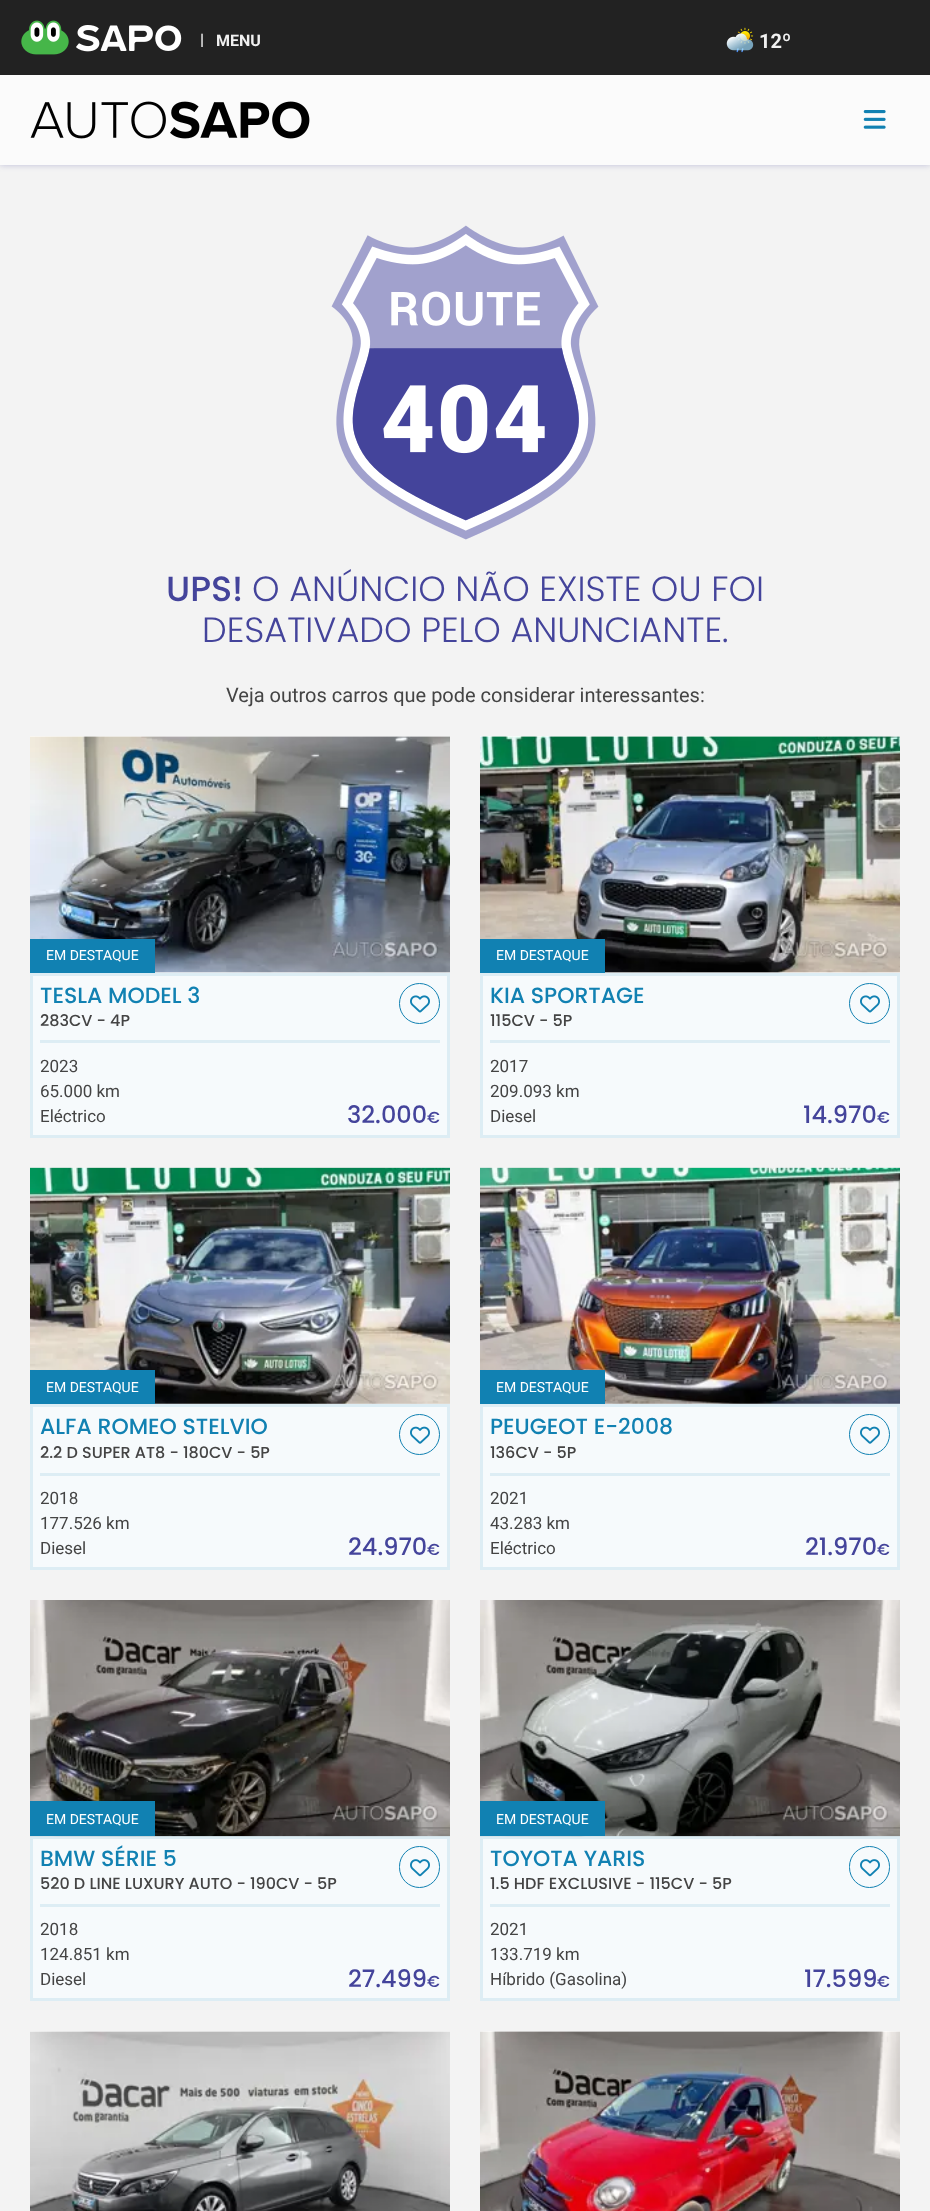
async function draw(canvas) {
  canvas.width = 930
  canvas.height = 2211
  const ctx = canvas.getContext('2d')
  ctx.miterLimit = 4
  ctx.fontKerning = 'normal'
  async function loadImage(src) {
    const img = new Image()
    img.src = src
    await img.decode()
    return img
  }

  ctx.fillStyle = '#f3f3f3'
  ctx.fillRect(0, 0, 930, 2211)
  ctx.fillStyle = '#44449b4d'
  ctx.filter = 'blur(3px)'
  ctx.beginPath()
  ctx.rect(0, 75, 930, 90)
  ctx.fill()
  ctx.filter = 'none'
  ctx.fillStyle = '#222'
  ctx.fillRect(0, 0, 930, 75)
  ctx.drawImage(await loadImage('image0.png'), 21, 20, 161, 35)
  ctx.font = 'bold 16px Roboto'
  ctx.fillStyle = '#f0f0f0'
  ctx.fillText('|', 200, 45)
  ctx.fillText('MENU', 216, 46)
  ctx.drawImage(await loadImage('image1.png'), 726, 27, 28, 26)
  ctx.font = 'bold 20px Roboto'
  ctx.fillText('12º', 759, 48)
  ctx.fillStyle = '#fbfbfb'
  ctx.fillRect(0, 75, 930, 90)
  ctx.drawImage(await loadImage('image2.png'), 30, 101, 280, 38)
  ctx.drawImage(await loadImage('image3.png'), 863, 110, 23, 19)
  ctx.drawImage(await loadImage('image4.png'), 331, 225, 268, 315)
  ctx.font = '500 35px Poppins'
  ctx.fillStyle = '#44449b'
  ctx.fillText('UPS!', 166, 601)
  ctx.font = '300 35px Poppins'
  ctx.fillText('O ANÚNCIO NÃO EXISTE OU FOI', 252, 601)
  ctx.fillText('DESATIVADO PELO ANUNCIANTE.', 202, 642)
  ctx.font = '20px Roboto'
  ctx.fillStyle = '#444'
  ctx.fillText('Veja outros carros que pode considerar interessantes:', 226, 702)
  ctx.fillStyle = '#fff'
  ctx.fillRect(30, 736, 420, 237)
  ctx.drawImage(await loadImage('image5.png'), 30, 736, 420, 237)
  ctx.fillStyle = '#1181b2'
  ctx.fillRect(30, 939, 125, 34)
  ctx.font = '14px Roboto'
  ctx.fillStyle = '#fff'
  ctx.fillText('EM DESTAQUE', 46, 960)
  ctx.fillStyle = '#f6fafc'
  ctx.beginPath()
  ctx.rect(31.5, 974.5, 417, 162)
  ctx.fill()
  ctx.strokeStyle = '#ddedf4'
  ctx.lineWidth = 3
  ctx.stroke()
  ctx.font = '500 22px Poppins'
  ctx.fillStyle = '#1181b2'
  ctx.fillText('TESLA MODEL 3', 40, 1003)
  ctx.font = '500 16px Poppins'
  ctx.fillStyle = '#444'
  ctx.fillText('283CV - 4P', 40, 1026)
  ctx.beginPath()
  ctx.arc(419.5, 1003.5, 20, 0, 2 * Math.PI)
  ctx.strokeStyle = '#1181b2'
  ctx.lineWidth = 1
  ctx.stroke()
  ctx.drawImage(await loadImage('image6.png'), 410, 995, 20, 18)
  ctx.fillStyle = '#ddedf4'
  ctx.fillRect(40, 1040, 400, 3)
  ctx.font = '17px Roboto'
  ctx.fillStyle = '#444'
  ctx.fillText('2023', 40, 1072)
  ctx.fillText('65.000 km', 40, 1097)
  ctx.fillText('Eléctrico', 40, 1122)
  ctx.font = '500 24px Poppins'
  ctx.fillStyle = '#44449b'
  ctx.fillText('32.000', 347, 1123)
  ctx.font = '500 16px Poppins'
  ctx.fillText('€', 427, 1123)
  ctx.fillStyle = '#fff'
  ctx.fillRect(480, 736, 420, 237)
  ctx.drawImage(await loadImage('image7.png'), 480, 736, 420, 237)
  ctx.fillStyle = '#1181b2'
  ctx.fillRect(480, 939, 125, 34)
  ctx.font = '14px Roboto'
  ctx.fillStyle = '#fff'
  ctx.fillText('EM DESTAQUE', 496, 960)
  ctx.fillStyle = '#f6fafc'
  ctx.beginPath()
  ctx.rect(481.5, 974.5, 417, 162)
  ctx.fill()
  ctx.strokeStyle = '#ddedf4'
  ctx.lineWidth = 3
  ctx.stroke()
  ctx.font = '500 22px Poppins'
  ctx.fillStyle = '#1181b2'
  ctx.fillText('KIA SPORTAGE', 490, 1003)
  ctx.font = '500 16px Poppins'
  ctx.fillStyle = '#444'
  ctx.fillText('115CV - 5P', 490, 1026)
  ctx.beginPath()
  ctx.arc(869.5, 1003.5, 20, 0, 2 * Math.PI)
  ctx.strokeStyle = '#1181b2'
  ctx.lineWidth = 1
  ctx.stroke()
  ctx.drawImage(await loadImage('image6.png'), 860, 995, 20, 18)
  ctx.fillStyle = '#ddedf4'
  ctx.fillRect(490, 1040, 400, 3)
  ctx.font = '17px Roboto'
  ctx.fillStyle = '#444'
  ctx.fillText('2017', 490, 1072)
  ctx.fillText('209.093 km', 490, 1097)
  ctx.fillText('Diesel', 490, 1122)
  ctx.font = '500 24px Poppins'
  ctx.fillStyle = '#44449b'
  ctx.fillText('14.970', 803, 1123)
  ctx.font = '500 16px Poppins'
  ctx.fillText('€', 877, 1123)
  ctx.drawImage(await loadImage('image8.png'), 30, 1167, 420, 237)
  ctx.fillStyle = '#1181b2'
  ctx.fillRect(30, 1370, 125, 34)
  ctx.font = '14px Roboto'
  ctx.fillStyle = '#fff'
  ctx.fillText('EM DESTAQUE', 46, 1392)
  ctx.fillStyle = '#f6fafc'
  ctx.beginPath()
  ctx.rect(31.5, 1405.5, 417, 163)
  ctx.fill()
  ctx.strokeStyle = '#ddedf4'
  ctx.lineWidth = 3
  ctx.stroke()
  ctx.font = '500 22px Poppins'
  ctx.fillStyle = '#1181b2'
  ctx.fillText('ALFA ROMEO STELVIO', 40, 1434)
  ctx.font = '500 16px Poppins'
  ctx.fillStyle = '#444'
  ctx.fillText('2.2 D SUPER AT8 - 180CV - 5P', 40, 1458)
  ctx.beginPath()
  ctx.arc(419.5, 1434.5, 20, 0, 2 * Math.PI)
  ctx.strokeStyle = '#1181b2'
  ctx.lineWidth = 1
  ctx.stroke()
  ctx.drawImage(await loadImage('image9.png'), 410, 1426, 20, 18)
  ctx.fillStyle = '#ddedf4'
  ctx.fillRect(40, 1473, 400, 3)
  ctx.font = '17px Roboto'
  ctx.fillStyle = '#444'
  ctx.fillText('2018', 40, 1504)
  ctx.fillText('177.526 km', 40, 1529)
  ctx.fillText('Diesel', 40, 1554)
  ctx.font = '500 24px Poppins'
  ctx.fillStyle = '#44449b'
  ctx.fillText('24.970', 348, 1555)
  ctx.font = '500 16px Poppins'
  ctx.fillText('€', 427, 1555)
  ctx.drawImage(await loadImage('image10.png'), 480, 1167, 420, 237)
  ctx.fillStyle = '#1181b2'
  ctx.fillRect(480, 1370, 125, 34)
  ctx.font = '14px Roboto'
  ctx.fillStyle = '#fff'
  ctx.fillText('EM DESTAQUE', 496, 1392)
  ctx.fillStyle = '#f6fafc'
  ctx.beginPath()
  ctx.rect(481.5, 1405.5, 417, 163)
  ctx.fill()
  ctx.strokeStyle = '#ddedf4'
  ctx.lineWidth = 3
  ctx.stroke()
  ctx.font = '500 22px Poppins'
  ctx.fillStyle = '#1181b2'
  ctx.fillText('PEUGEOT E-2008', 490, 1434)
  ctx.font = '500 16px Poppins'
  ctx.fillStyle = '#444'
  ctx.fillText('136CV - 5P', 490, 1458)
  ctx.beginPath()
  ctx.arc(869.5, 1434.5, 20, 0, 2 * Math.PI)
  ctx.strokeStyle = '#1181b2'
  ctx.lineWidth = 1
  ctx.stroke()
  ctx.drawImage(await loadImage('image9.png'), 860, 1426, 20, 18)
  ctx.fillStyle = '#ddedf4'
  ctx.fillRect(490, 1473, 400, 3)
  ctx.font = '17px Roboto'
  ctx.fillStyle = '#444'
  ctx.fillText('2021', 490, 1504)
  ctx.fillText('43.283 km', 490, 1529)
  ctx.fillText('Eléctrico', 490, 1554)
  ctx.font = '500 24px Poppins'
  ctx.fillStyle = '#44449b'
  ctx.fillText('21.970', 805, 1555)
  ctx.font = '500 16px Poppins'
  ctx.fillText('€', 877, 1555)
  ctx.fillStyle = '#f6fafc'
  ctx.beginPath()
  ctx.rect(31.5, 1837.5, 417, 162)
  ctx.fill()
  ctx.strokeStyle = '#ddedf4'
  ctx.lineWidth = 3
  ctx.stroke()
  ctx.drawImage(await loadImage('image11.png'), 30, 1600, 420, 237)
  ctx.fillStyle = '#1181b2'
  ctx.fillRect(30, 1801, 125, 35)
  ctx.font = '14px Roboto'
  ctx.fillStyle = '#fff'
  ctx.fillText('EM DESTAQUE', 46, 1824)
  ctx.font = '500 22px Poppins'
  ctx.fillStyle = '#1181b2'
  ctx.fillText('BMW SÉRIE 5', 40, 1866)
  ctx.font = '500 16px Poppins'
  ctx.fillStyle = '#444'
  ctx.fillText('520 D LINE LUXURY AUTO - 190CV - 5P', 40, 1889)
  ctx.beginPath()
  ctx.roundRect(399.5, 1846.5, 40, 41, 20)
  ctx.strokeStyle = '#1181b2'
  ctx.lineWidth = 1
  ctx.stroke()
  ctx.drawImage(await loadImage('image12.png'), 410, 1859, 20, 18)
  ctx.fillStyle = '#ddedf4'
  ctx.fillRect(40, 1904, 400, 3)
  ctx.font = '17px Roboto'
  ctx.fillStyle = '#444'
  ctx.fillText('2018', 40, 1935)
  ctx.fillText('124.851 km', 40, 1960)
  ctx.fillText('Diesel', 40, 1985)
  ctx.font = '500 24px Poppins'
  ctx.fillStyle = '#44449b'
  ctx.fillText('27.499', 348, 1987)
  ctx.font = '500 16px Poppins'
  ctx.fillText('€', 427, 1987)
  ctx.fillStyle = '#f6fafc'
  ctx.beginPath()
  ctx.rect(481.5, 1837.5, 417, 162)
  ctx.fill()
  ctx.strokeStyle = '#ddedf4'
  ctx.lineWidth = 3
  ctx.stroke()
  ctx.drawImage(await loadImage('image13.png'), 480, 1600, 420, 237)
  ctx.fillStyle = '#1181b2'
  ctx.fillRect(480, 1801, 125, 35)
  ctx.font = '14px Roboto'
  ctx.fillStyle = '#fff'
  ctx.fillText('EM DESTAQUE', 496, 1824)
  ctx.font = '500 22px Poppins'
  ctx.fillStyle = '#1181b2'
  ctx.fillText('TOYOTA YARIS', 490, 1866)
  ctx.font = '500 16px Poppins'
  ctx.fillStyle = '#444'
  ctx.fillText('1.5 HDF EXCLUSIVE - 115CV - 5P', 490, 1889)
  ctx.beginPath()
  ctx.roundRect(849.5, 1846.5, 40, 41, 20)
  ctx.strokeStyle = '#1181b2'
  ctx.lineWidth = 1
  ctx.stroke()
  ctx.drawImage(await loadImage('image12.png'), 860, 1859, 20, 18)
  ctx.fillStyle = '#ddedf4'
  ctx.fillRect(490, 1904, 400, 3)
  ctx.font = '17px Roboto'
  ctx.fillStyle = '#444'
  ctx.fillText('2021', 490, 1935)
  ctx.fillText('133.719 km', 490, 1960)
  ctx.fillText('Híbrido (Gasolina)', 490, 1985)
  ctx.font = '500 24px Poppins'
  ctx.fillStyle = '#44449b'
  ctx.fillText('17.599', 804, 1987)
  ctx.font = '500 16px Poppins'
  ctx.fillText('€', 877, 1987)
  ctx.fillStyle = '#fff'
  ctx.fillRect(30, 2031, 420, 1)
  ctx.drawImage(await loadImage('image14.png'), 30, 2031, 420, 180)
  ctx.fillRect(480, 2031, 420, 1)
  ctx.drawImage(await loadImage('image15.png'), 480, 2031, 420, 180)
}

draw(document.querySelector('canvas'))
